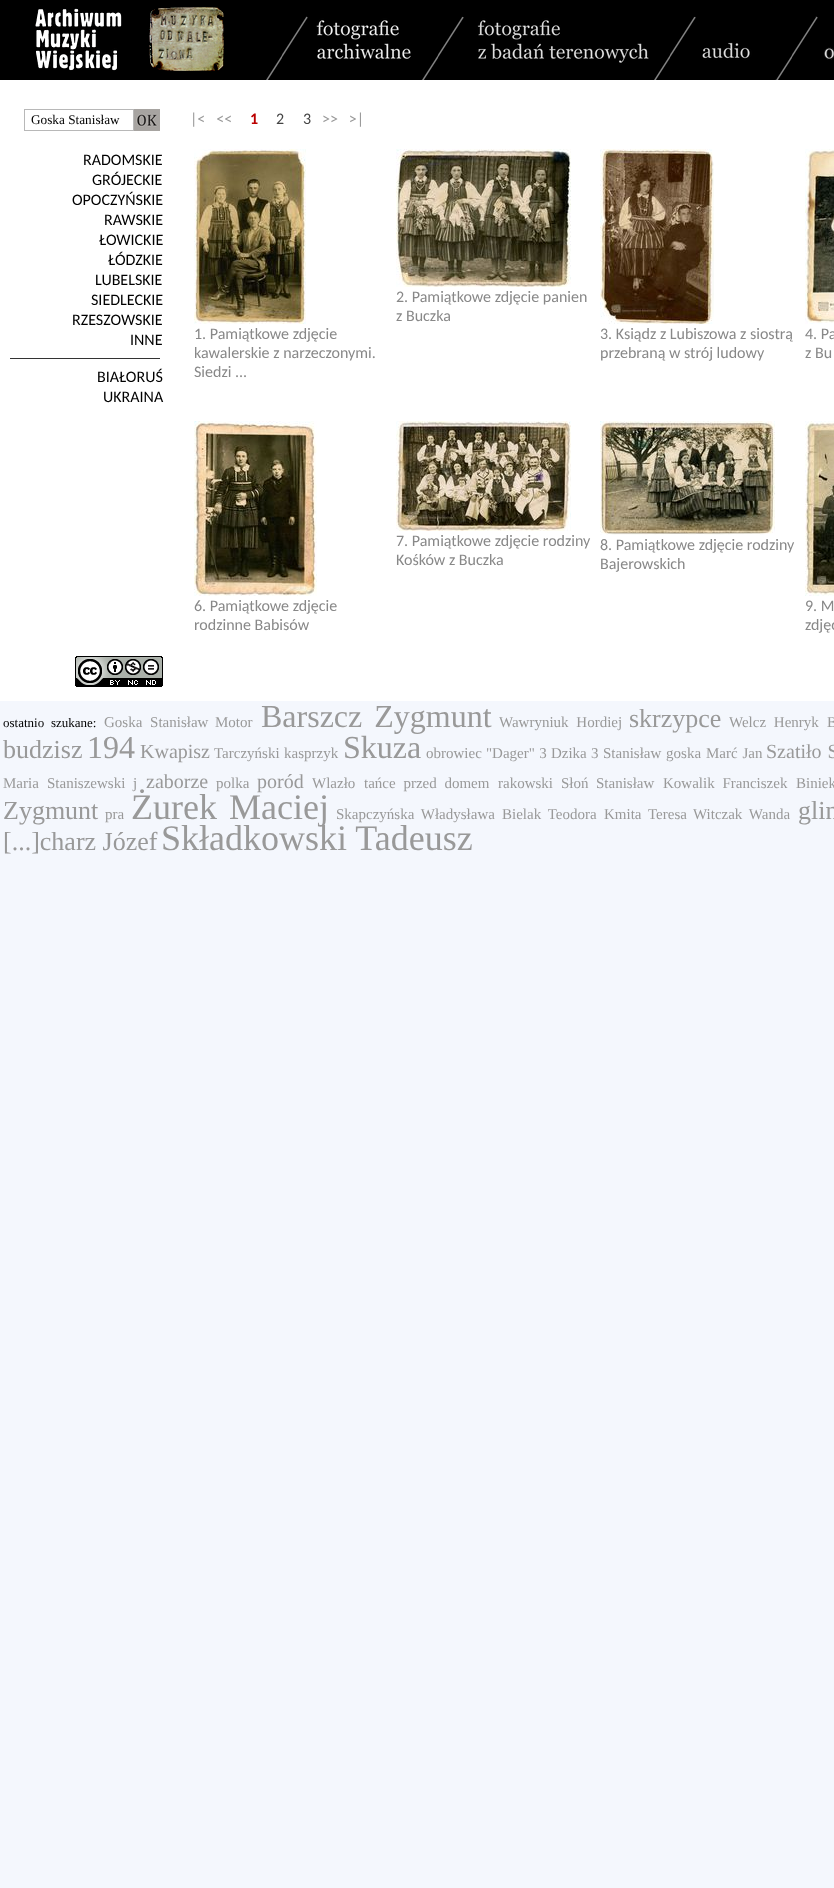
async function draw(canvas) {
  canvas.width = 834
  canvas.height = 1888
  const ctx = canvas.getContext('2d')
  ctx.miterLimit = 4
  ctx.fontKerning = 'normal'
  async function loadImage(src) {
    const img = new Image()
    img.src = src
    await img.decode()
    return img
  }

  ctx.fillStyle = '#f4f7fd'
  ctx.fillRect(0, 0, 834, 1888)
  ctx.fillStyle = '#000'
  ctx.fillRect(0, 0, 834, 80)
  ctx.drawImage(await loadImage('image0.png'), 35, 7, 799, 73)
  ctx.fillStyle = '#fff'
  ctx.fillRect(0, 80, 834, 621)
  ctx.strokeStyle = '#b8b8b8'
  ctx.strokeRect(24.5, 109.5, 109, 21)
  ctx.font = '13.25px Liberation Serif'
  ctx.fillStyle = '#000'
  ctx.fillText('Goska Stanisław', 31, 124)
  ctx.drawImage(await loadImage('image1.png'), 134, 109, 26, 22)
  ctx.font = '16px Carlito'
  ctx.fillText('RADOMSKIE', 83, 165)
  ctx.fillText('GRÓJECKIE', 92, 185)
  ctx.fillText('OPOCZYŃSKIE', 72, 205)
  ctx.fillText('RAWSKIE', 104, 225)
  ctx.fillText('ŁOWICKIE', 99, 245)
  ctx.fillText('ŁÓDZKIE', 108, 265)
  ctx.fillText('LUBELSKIE', 95, 285)
  ctx.fillText('SIEDLECKIE', 91, 305)
  ctx.fillText('RZESZOWSKIE', 72, 325)
  ctx.fillText('INNE', 130, 345)
  ctx.fillStyle = '#333'
  ctx.fillRect(10, 358, 150, 1)
  ctx.fillStyle = '#000'
  ctx.fillText('BIAŁORUŚ', 97, 382)
  ctx.fillText('UKRAINA', 103, 402)
  ctx.fillStyle = '#999'
  ctx.fillText('|<   <<', 190, 124)
  ctx.font = 'bold 16px Carlito'
  ctx.fillStyle = '#b00'
  ctx.fillText('1', 250, 124)
  ctx.font = '16px Carlito'
  ctx.fillStyle = '#444'
  ctx.fillText('2', 276, 124)
  ctx.fillText('3', 303, 124)
  ctx.fillStyle = '#999'
  ctx.fillText('>>   >|', 322, 124)
  ctx.drawImage(await loadImage('image2.png'), 396, 149, 175, 138)
  ctx.fillStyle = '#888'
  ctx.fillText('2. Pamiątkowe zdjęcie panien', 396, 302)
  ctx.fillText('z Buczka', 396, 321)
  ctx.drawImage(await loadImage('image3.png'), 194, 149, 112, 175)
  ctx.fillText('1. Pamiątkowe zdjęcie', 194, 339)
  ctx.fillText('kawalerskie z narzeczonymi.', 194, 358)
  ctx.fillText('Siedzi ...', 194, 377)
  ctx.drawImage(await loadImage('image4.png'), 600, 149, 114, 175)
  ctx.fillText('3. Ksiądz z Lubiszowa z siostrą', 600, 339)
  ctx.fillText('przebraną w strój ludowy', 600, 358)
  ctx.drawImage(await loadImage('image5.png'), 805, 149, 29, 175)
  ctx.fillText('4. Pa', 805, 339)
  ctx.fillText('z Bu', 805, 358)
  ctx.drawImage(await loadImage('image6.png'), 396, 421, 175, 110)
  ctx.fillText('7. Pamiątkowe zdjęcie rodziny', 396, 546)
  ctx.fillText('Kośków z Buczka', 396, 565)
  ctx.drawImage(await loadImage('image7.png'), 600, 421, 175, 114)
  ctx.fillText('8. Pamiątkowe zdjęcie rodziny', 600, 550)
  ctx.fillText('Bajerowskich', 600, 569)
  ctx.drawImage(await loadImage('image8.png'), 194, 421, 123, 175)
  ctx.fillText('6. Pamiątkowe zdjęcie', 194, 611)
  ctx.fillText('rodzinne Babisów', 194, 630)
  ctx.drawImage(await loadImage('image9.png'), 805, 421, 29, 175)
  ctx.fillText('9. M', 805, 611)
  ctx.fillText('zdjęc', 805, 630)
  ctx.drawImage(await loadImage('image10.png'), 75, 656, 88, 31)
  ctx.font = '13px Liberation Serif'
  ctx.fillStyle = '#000'
  ctx.fillText('ostatnio', 3, 727)
  ctx.fillText('szukane:', 51, 727)
  ctx.wordSpacing = '4px'
  ctx.font = '15px Liberation Serif'
  ctx.fillStyle = '#999'
  ctx.fillText('Goska Stanisław', 104, 727)
  ctx.wordSpacing = '0px'
  ctx.fillText('Motor', 215, 727)
  ctx.wordSpacing = '4px'
  ctx.font = '32px Liberation Serif'
  ctx.fillText('Barszcz Zygmunt', 261, 727)
  ctx.font = '15px Liberation Serif'
  ctx.fillText('Wawryniuk Hordiej', 499, 727)
  ctx.wordSpacing = '0px'
  ctx.font = '26px Liberation Serif'
  ctx.fillText('skrzypce', 629, 727)
  ctx.wordSpacing = '4px'
  ctx.font = '15px Liberation Serif'
  ctx.fillText('Welcz Henryk', 729, 727)
  ctx.wordSpacing = '0px'
  ctx.fillText('B', 827, 727)
  ctx.font = '26px Liberation Serif'
  ctx.fillText('budzisz', 3, 758)
  ctx.font = '32px Liberation Serif'
  ctx.fillText('194', 87, 758)
  ctx.font = '20px Liberation Serif'
  ctx.fillText('Kwapisz', 140, 758)
  ctx.font = '15px Liberation Serif'
  ctx.fillText('Tarczyński', 214, 758)
  ctx.fillText('kasprzyk', 284, 758)
  ctx.font = '32px Liberation Serif'
  ctx.fillText('Skuza', 343, 758)
  ctx.font = '15px Liberation Serif'
  ctx.fillText('obrowiec', 426, 758)
  ctx.wordSpacing = '0.5px'
  ctx.fillText('"Dager" 3 Dzika 3', 486, 758)
  ctx.wordSpacing = '1px'
  ctx.fillText('Stanisław goska', 603, 758)
  ctx.fillText('Marć Jan', 706, 758)
  ctx.font = '20px Liberation Serif'
  ctx.fillText('Szatiło S', 766, 758)
  ctx.wordSpacing = '0px'
  ctx.font = '15px Liberation Serif'
  ctx.fillText('Maria', 3, 788)
  ctx.wordSpacing = '4px'
  ctx.fillText('Staniszewski j', 47, 788)
  ctx.wordSpacing = '0px'
  ctx.font = '20px Liberation Serif'
  ctx.fillText('zaborze', 146, 788)
  ctx.font = '15px Liberation Serif'
  ctx.fillText('polka', 216, 788)
  ctx.font = '20px Liberation Serif'
  ctx.fillText('poród', 257, 788)
  ctx.font = '15px Liberation Serif'
  ctx.fillText('Wlazło', 312, 788)
  ctx.wordSpacing = '4px'
  ctx.fillText('tańce przed domem', 364, 788)
  ctx.wordSpacing = '0px'
  ctx.fillText('rakowski', 498, 788)
  ctx.fillText('Słoń', 561, 788)
  ctx.fillText('Stanisław', 596, 788)
  ctx.wordSpacing = '4px'
  ctx.fillText('Kowalik Franciszek', 663, 788)
  ctx.fillText('Biniek', 796, 788)
  ctx.wordSpacing = '0px'
  ctx.font = '26px Liberation Serif'
  ctx.fillText('Zygmunt', 3, 819)
  ctx.font = '15px Liberation Serif'
  ctx.fillText('pra', 105, 819)
  ctx.wordSpacing = '3px'
  ctx.font = '36px Liberation Serif'
  ctx.fillText('Żurek Maciej', 131, 819)
  ctx.font = '15px Liberation Serif'
  ctx.fillText('Skapczyńska Władysława', 336, 819)
  ctx.fillText('Bielak Teodora', 502, 819)
  ctx.fillText('Kmita Teresa', 604, 819)
  ctx.fillText('Witczak Wanda', 693, 819)
  ctx.wordSpacing = '0px'
  ctx.font = '26px Liberation Serif'
  ctx.fillText('glin', 798, 819)
  ctx.fillText('[...]charz Józef', 3, 850)
  ctx.font = '36px Liberation Serif'
  ctx.fillText('Składkowski Tadeusz', 161, 850)
}

draw(document.querySelector('canvas'))
